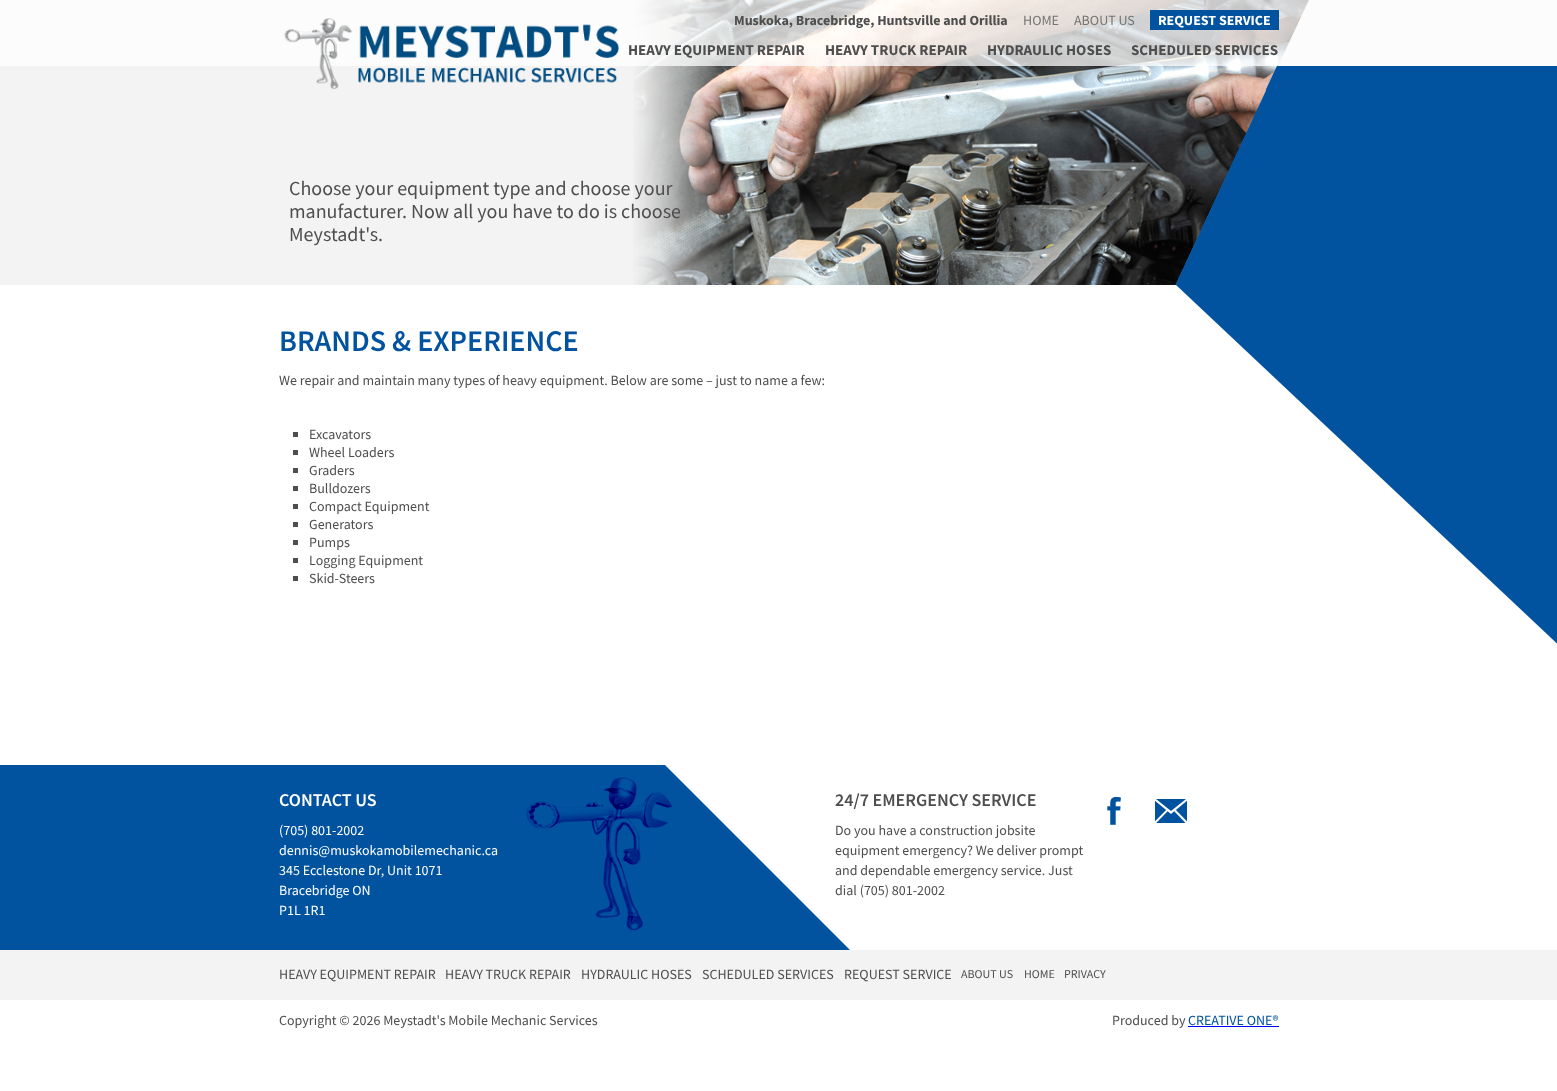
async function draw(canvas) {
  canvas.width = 1557
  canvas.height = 1091
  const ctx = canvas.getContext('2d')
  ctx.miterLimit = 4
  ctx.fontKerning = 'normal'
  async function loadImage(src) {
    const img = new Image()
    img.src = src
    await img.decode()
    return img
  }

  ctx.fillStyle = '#fff'
  ctx.fillRect(0, 0, 1557, 1091)
  ctx.fillStyle = '#f3f3f3'
  ctx.fillRect(0, 0, 1557, 285)
  ctx.drawImage(await loadImage('image1.png'), 633, 0, 676, 285)
  ctx.fillStyle = '#ffffffbf'
  ctx.fillRect(0, 0, 1557, 66)
  ctx.drawImage(await loadImage('image0.png'), 279, 18, 340, 72)
  ctx.font = 'bold 14px Source Sans Pro'
  ctx.fillStyle = '#4e4e4e'
  ctx.fillText('Muskoka, Bracebridge, Huntsville and Orillia', 734, 25)
  ctx.font = '14px Source Sans Pro'
  ctx.fillStyle = '#747474'
  ctx.fillText('HOME', 1023, 25)
  ctx.fillText('ABOUT US', 1074, 25)
  ctx.fillStyle = '#0153a0'
  ctx.fillRect(1150, 10, 129, 20)
  ctx.font = 'bold 14px Source Sans Pro'
  ctx.fillStyle = '#fff'
  ctx.fillText('REQUEST SERVICE', 1158, 25)
  ctx.font = 'bold 15px Source Sans Pro'
  ctx.fillStyle = '#4e4e4e'
  ctx.fillText('HEAVY EQUIPMENT REPAIR', 628, 55)
  ctx.fillText('HEAVY TRUCK REPAIR', 825, 55)
  ctx.fillText('HYDRAULIC HOSES', 987, 55)
  ctx.fillText('SCHEDULED SERVICES', 1131, 55)
  ctx.font = '20px Source Sans Pro'
  ctx.fillText('Choose your equipment type and choose your', 289, 195)
  ctx.fillText('manufacturer. Now all you have to do is choose', 289, 218)
  ctx.fillText('Meystadt\'s.', 289, 241)
  ctx.drawImage(await loadImage('image2.png'), 1175, 66, 382, 578)
  ctx.font = '600 30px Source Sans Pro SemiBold'
  ctx.fillStyle = '#0153a0'
  ctx.fillText('BRANDS & EXPERIENCE', 279, 351)
  ctx.font = '14px Source Sans Pro'
  ctx.fillStyle = '#4e4e4e'
  ctx.fillText('We repair and maintain many types of heavy equipment. Below are some – just to name a few:', 279, 385)
  ctx.fillRect(293, 432, 5, 5)
  ctx.fillText('Excavators', 309, 439)
  ctx.fillRect(293, 450, 5, 5)
  ctx.fillText('Wheel Loaders', 309, 457)
  ctx.fillRect(293, 468, 5, 5)
  ctx.fillText('Graders', 309, 475)
  ctx.fillRect(293, 486, 5, 5)
  ctx.fillText('Bulldozers', 309, 493)
  ctx.fillRect(293, 504, 5, 5)
  ctx.fillText('Compact Equipment', 309, 511)
  ctx.fillRect(293, 522, 5, 5)
  ctx.fillText('Generators', 309, 529)
  ctx.fillRect(293, 540, 5, 5)
  ctx.fillText('Pumps', 309, 547)
  ctx.fillRect(293, 558, 5, 5)
  ctx.fillText('Logging Equipment', 309, 565)
  ctx.fillRect(293, 576, 5, 5)
  ctx.fillText('Skid-Steers', 309, 583)
  ctx.font = '600 18px Source Sans Pro SemiBold'
  ctx.fillText('24/7 EMERGENCY SERVICE', 835, 806)
  ctx.font = '14px Source Sans Pro'
  ctx.fillText('Do you have a construction jobsite', 835, 835)
  ctx.fillText('equipment emergency? We deliver prompt', 835, 855)
  ctx.fillText('and dependable emergency service. Just', 835, 875)
  ctx.fillText('dial (705) 801-2002', 835, 895)
  ctx.drawImage(await loadImage('image3.png'), 0, 765, 850, 185)
  ctx.font = '600 18px Source Sans Pro SemiBold'
  ctx.fillStyle = '#fff'
  ctx.fillText('CONTACT US', 279, 806)
  ctx.font = '14px Source Sans Pro'
  ctx.fillText('(705) 801-2002', 279, 835)
  ctx.fillText('dennis@muskokamobilemechanic.ca', 279, 855)
  ctx.fillText('345 Ecclestone Dr, Unit 1071', 279, 875)
  ctx.fillText('Bracebridge ON', 279, 895)
  ctx.fillText('P1L 1R1', 279, 915)
  ctx.drawImage(await loadImage('image4.png'), 1107, 797, 14, 28)
  ctx.drawImage(await loadImage('image5.png'), 1155, 799, 32, 24)
  ctx.fillStyle = '#f3f3f3'
  ctx.fillRect(0, 950, 1557, 50)
  ctx.fillStyle = '#4e4e4e'
  ctx.fillText('HEAVY EQUIPMENT REPAIR', 279, 979)
  ctx.fillText('HEAVY TRUCK REPAIR', 445, 979)
  ctx.fillText('HYDRAULIC HOSES', 581, 979)
  ctx.fillText('SCHEDULED SERVICES', 702, 979)
  ctx.fillText('REQUEST SERVICE', 844, 979)
  ctx.font = '12px Source Sans Pro'
  ctx.fillText('ABOUT US', 961, 978)
  ctx.fillText('HOME', 1024, 978)
  ctx.fillText('PRIVACY', 1064, 978)
  ctx.font = '14px Source Sans Pro'
  ctx.fillText('Copyright © 2026 Meystadt\'s Mobile Mechanic Services', 279, 1025)
  ctx.fillText('Produced by', 1112, 1025)
  ctx.fillStyle = '#0153a0'
  ctx.fillText('CREATIVE ONE®', 1188, 1025)
  ctx.fillStyle = '#00e'
  ctx.fillRect(1188, 1026, 91, 1)
}

draw(document.querySelector('canvas'))
